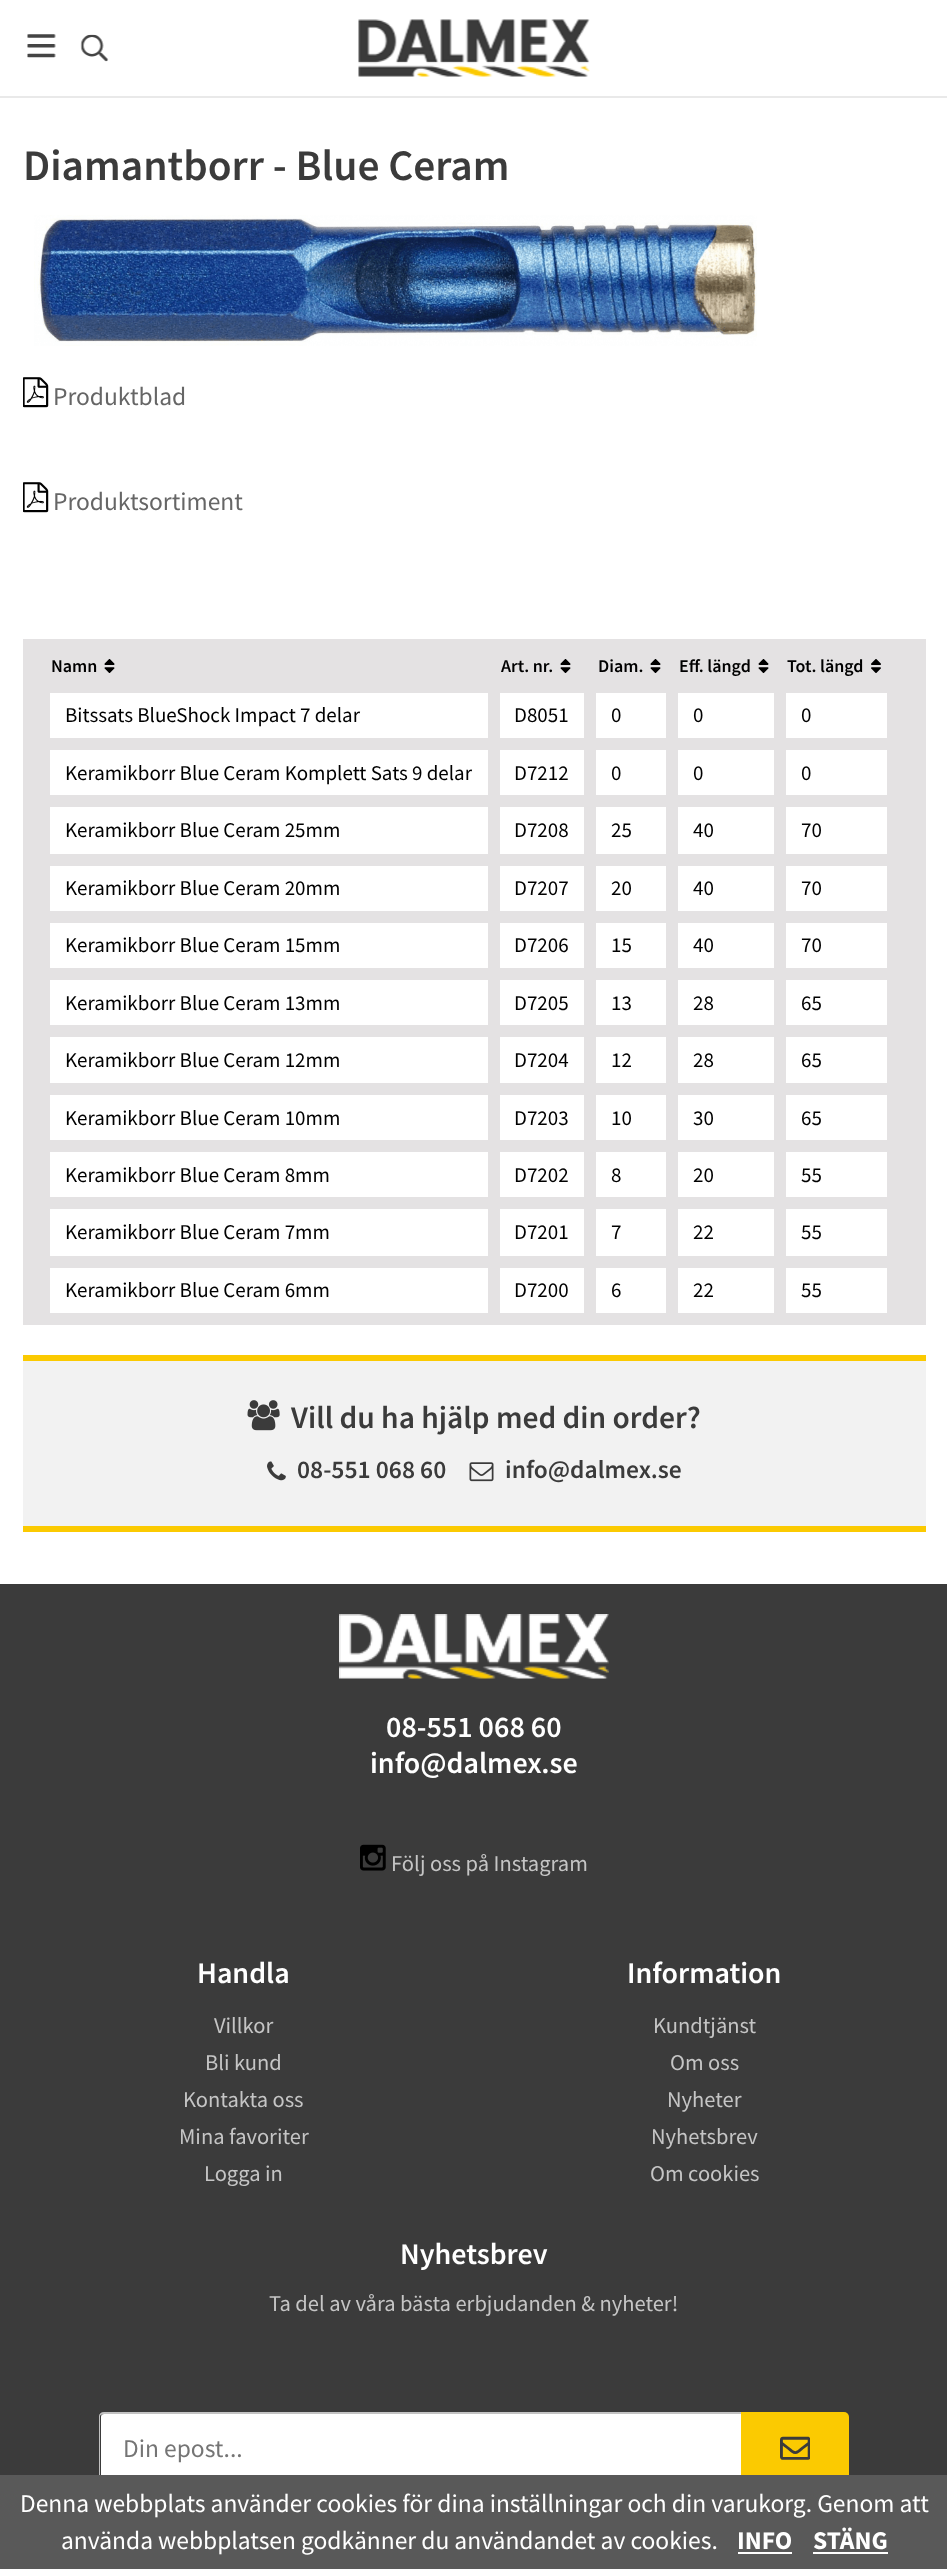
async function draw(canvas) {
  canvas.width = 947
  canvas.height = 2569
  const ctx = canvas.getContext('2d')
  ctx.miterLimit = 4
  ctx.fontKerning = 'normal'
  async function loadImage(src) {
    const img = new Image()
    img.src = src
    await img.decode()
    return img
  }

  ctx.fillStyle = '#fff'
  ctx.fillRect(0, 0, 947, 2569)
  ctx.fillStyle = '#e9e9e9'
  ctx.fillRect(0, 96, 947, 2)
  ctx.drawImage(await loadImage('image0.png'), 27, 34, 29, 24)
  ctx.drawImage(await loadImage('image1.png'), 80, 34, 29, 28)
  ctx.drawImage(await loadImage('image2.png'), 358, 19, 232, 58)
  ctx.font = '600 43.5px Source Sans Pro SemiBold'
  ctx.fillStyle = '#3b3b3b'
  ctx.fillText('Diamantborr - Blue Ceram', 23, 180)
  ctx.drawImage(await loadImage('image3.png'), 34, 215, 723, 131)
  ctx.drawImage(await loadImage('image4.png'), 23, 377, 26, 31)
  ctx.font = '25.5px Source Sans Pro'
  ctx.fillStyle = '#666'
  ctx.fillText('Produktblad', 53, 405)
  ctx.drawImage(await loadImage('image4.png'), 23, 482, 26, 31)
  ctx.fillText('Produktsortiment', 53, 510)
  ctx.fillStyle = '#e4e2e3'
  ctx.fillRect(23, 639, 903, 686)
  ctx.font = '600 18px Source Sans Pro SemiBold'
  ctx.fillStyle = '#000'
  ctx.fillText('Namn', 51, 672)
  ctx.drawImage(await loadImage('image5.png'), 104, 659, 11, 14)
  ctx.fillText('Art. nr.', 501, 672)
  ctx.drawImage(await loadImage('image5.png'), 560, 659, 11, 14)
  ctx.fillText('Diam.', 598, 672)
  ctx.drawImage(await loadImage('image5.png'), 650, 659, 11, 14)
  ctx.fillText('Eff. längd', 679, 672)
  ctx.drawImage(await loadImage('image6.png'), 758, 659, 11, 14)
  ctx.fillText('Tot. längd', 787, 672)
  ctx.drawImage(await loadImage('image7.png'), 871, 659, 10, 14)
  ctx.fillStyle = '#fff'
  ctx.fillRect(50, 693, 438, 45)
  ctx.font = '21px Source Sans Pro'
  ctx.fillStyle = '#000'
  ctx.fillText('Bitssats BlueShock Impact 7 delar', 65, 722)
  ctx.fillStyle = '#fff'
  ctx.fillRect(500, 693, 84, 45)
  ctx.fillStyle = '#000'
  ctx.fillText('D8051', 514, 722)
  ctx.fillStyle = '#fff'
  ctx.fillRect(596, 693, 70, 45)
  ctx.fillStyle = '#000'
  ctx.fillText('0', 611, 722)
  ctx.fillStyle = '#fff'
  ctx.fillRect(678, 693, 96, 45)
  ctx.fillStyle = '#000'
  ctx.fillText('0', 693, 722)
  ctx.fillStyle = '#fff'
  ctx.fillRect(786, 693, 101, 45)
  ctx.fillStyle = '#000'
  ctx.fillText('0', 801, 722)
  ctx.fillStyle = '#fff'
  ctx.fillRect(50, 750, 438, 45)
  ctx.fillStyle = '#000'
  ctx.fillText('Keramikborr Blue Ceram Komplett Sats 9 delar', 65, 780)
  ctx.fillStyle = '#fff'
  ctx.fillRect(500, 750, 84, 45)
  ctx.fillStyle = '#000'
  ctx.fillText('D7212', 514, 780)
  ctx.fillStyle = '#fff'
  ctx.fillRect(596, 750, 70, 45)
  ctx.fillStyle = '#000'
  ctx.fillText('0', 611, 780)
  ctx.fillStyle = '#fff'
  ctx.fillRect(678, 750, 96, 45)
  ctx.fillStyle = '#000'
  ctx.fillText('0', 693, 780)
  ctx.fillStyle = '#fff'
  ctx.fillRect(786, 750, 101, 45)
  ctx.fillStyle = '#000'
  ctx.fillText('0', 801, 780)
  ctx.fillStyle = '#fff'
  ctx.fillRect(50, 807, 438, 47)
  ctx.fillStyle = '#000'
  ctx.fillText('Keramikborr Blue Ceram 25mm', 65, 837)
  ctx.fillStyle = '#fff'
  ctx.fillRect(500, 807, 84, 47)
  ctx.fillStyle = '#000'
  ctx.fillText('D7208', 514, 837)
  ctx.fillStyle = '#fff'
  ctx.fillRect(596, 807, 70, 47)
  ctx.fillStyle = '#000'
  ctx.fillText('25', 611, 837)
  ctx.fillStyle = '#fff'
  ctx.fillRect(678, 807, 96, 47)
  ctx.fillStyle = '#000'
  ctx.fillText('40', 693, 837)
  ctx.fillStyle = '#fff'
  ctx.fillRect(786, 807, 101, 47)
  ctx.fillStyle = '#000'
  ctx.fillText('70', 801, 837)
  ctx.fillStyle = '#fff'
  ctx.fillRect(50, 866, 438, 45)
  ctx.fillStyle = '#000'
  ctx.fillText('Keramikborr Blue Ceram 20mm', 65, 895)
  ctx.fillStyle = '#fff'
  ctx.fillRect(500, 866, 84, 45)
  ctx.fillStyle = '#000'
  ctx.fillText('D7207', 514, 895)
  ctx.fillStyle = '#fff'
  ctx.fillRect(596, 866, 70, 45)
  ctx.fillStyle = '#000'
  ctx.fillText('20', 611, 895)
  ctx.fillStyle = '#fff'
  ctx.fillRect(678, 866, 96, 45)
  ctx.fillStyle = '#000'
  ctx.fillText('40', 693, 895)
  ctx.fillStyle = '#fff'
  ctx.fillRect(786, 866, 101, 45)
  ctx.fillStyle = '#000'
  ctx.fillText('70', 801, 895)
  ctx.fillStyle = '#fff'
  ctx.fillRect(50, 923, 438, 45)
  ctx.fillStyle = '#000'
  ctx.fillText('Keramikborr Blue Ceram 15mm', 65, 952)
  ctx.fillStyle = '#fff'
  ctx.fillRect(500, 923, 84, 45)
  ctx.fillStyle = '#000'
  ctx.fillText('D7206', 514, 952)
  ctx.fillStyle = '#fff'
  ctx.fillRect(596, 923, 70, 45)
  ctx.fillStyle = '#000'
  ctx.fillText('15', 611, 952)
  ctx.fillStyle = '#fff'
  ctx.fillRect(678, 923, 96, 45)
  ctx.fillStyle = '#000'
  ctx.fillText('40', 693, 952)
  ctx.fillStyle = '#fff'
  ctx.fillRect(786, 923, 101, 45)
  ctx.fillStyle = '#000'
  ctx.fillText('70', 801, 952)
  ctx.fillStyle = '#fff'
  ctx.fillRect(50, 980, 438, 45)
  ctx.fillStyle = '#000'
  ctx.fillText('Keramikborr Blue Ceram 13mm', 65, 1010)
  ctx.fillStyle = '#fff'
  ctx.fillRect(500, 980, 84, 45)
  ctx.fillStyle = '#000'
  ctx.fillText('D7205', 514, 1010)
  ctx.fillStyle = '#fff'
  ctx.fillRect(596, 980, 70, 45)
  ctx.fillStyle = '#000'
  ctx.fillText('13', 611, 1010)
  ctx.fillStyle = '#fff'
  ctx.fillRect(678, 980, 96, 45)
  ctx.fillStyle = '#000'
  ctx.fillText('28', 693, 1010)
  ctx.fillStyle = '#fff'
  ctx.fillRect(786, 980, 101, 45)
  ctx.fillStyle = '#000'
  ctx.fillText('65', 801, 1010)
  ctx.fillStyle = '#fff'
  ctx.fillRect(50, 1037, 438, 46)
  ctx.fillStyle = '#000'
  ctx.fillText('Keramikborr Blue Ceram 12mm', 65, 1067)
  ctx.fillStyle = '#fff'
  ctx.fillRect(500, 1037, 84, 46)
  ctx.fillStyle = '#000'
  ctx.fillText('D7204', 514, 1067)
  ctx.fillStyle = '#fff'
  ctx.fillRect(596, 1037, 70, 46)
  ctx.fillStyle = '#000'
  ctx.fillText('12', 611, 1067)
  ctx.fillStyle = '#fff'
  ctx.fillRect(678, 1037, 96, 46)
  ctx.fillStyle = '#000'
  ctx.fillText('28', 693, 1067)
  ctx.fillStyle = '#fff'
  ctx.fillRect(786, 1037, 101, 46)
  ctx.fillStyle = '#000'
  ctx.fillText('65', 801, 1067)
  ctx.fillStyle = '#fff'
  ctx.fillRect(50, 1095, 438, 45)
  ctx.fillStyle = '#000'
  ctx.fillText('Keramikborr Blue Ceram 10mm', 65, 1125)
  ctx.fillStyle = '#fff'
  ctx.fillRect(500, 1095, 84, 45)
  ctx.fillStyle = '#000'
  ctx.fillText('D7203', 514, 1125)
  ctx.fillStyle = '#fff'
  ctx.fillRect(596, 1095, 70, 45)
  ctx.fillStyle = '#000'
  ctx.fillText('10', 611, 1125)
  ctx.fillStyle = '#fff'
  ctx.fillRect(678, 1095, 96, 45)
  ctx.fillStyle = '#000'
  ctx.fillText('30', 693, 1125)
  ctx.fillStyle = '#fff'
  ctx.fillRect(786, 1095, 101, 45)
  ctx.fillStyle = '#000'
  ctx.fillText('65', 801, 1125)
  ctx.fillStyle = '#fff'
  ctx.fillRect(50, 1152, 438, 45)
  ctx.fillStyle = '#000'
  ctx.fillText('Keramikborr Blue Ceram 8mm', 65, 1182)
  ctx.fillStyle = '#fff'
  ctx.fillRect(500, 1152, 84, 45)
  ctx.fillStyle = '#000'
  ctx.fillText('D7202', 514, 1182)
  ctx.fillStyle = '#fff'
  ctx.fillRect(596, 1152, 70, 45)
  ctx.fillStyle = '#000'
  ctx.fillText('8', 611, 1182)
  ctx.fillStyle = '#fff'
  ctx.fillRect(678, 1152, 96, 45)
  ctx.fillStyle = '#000'
  ctx.fillText('20', 693, 1182)
  ctx.fillStyle = '#fff'
  ctx.fillRect(786, 1152, 101, 45)
  ctx.fillStyle = '#000'
  ctx.fillText('55', 801, 1182)
  ctx.fillStyle = '#fff'
  ctx.fillRect(50, 1209, 438, 47)
  ctx.fillStyle = '#000'
  ctx.fillText('Keramikborr Blue Ceram 7mm', 65, 1239)
  ctx.fillStyle = '#fff'
  ctx.fillRect(500, 1209, 84, 47)
  ctx.fillStyle = '#000'
  ctx.fillText('D7201', 514, 1239)
  ctx.fillStyle = '#fff'
  ctx.fillRect(596, 1209, 70, 47)
  ctx.fillStyle = '#000'
  ctx.fillText('7', 611, 1239)
  ctx.fillStyle = '#fff'
  ctx.fillRect(678, 1209, 96, 47)
  ctx.fillStyle = '#000'
  ctx.fillText('22', 693, 1239)
  ctx.fillStyle = '#fff'
  ctx.fillRect(786, 1209, 101, 47)
  ctx.fillStyle = '#000'
  ctx.fillText('55', 801, 1239)
  ctx.fillStyle = '#fff'
  ctx.fillRect(50, 1268, 438, 45)
  ctx.fillStyle = '#000'
  ctx.fillText('Keramikborr Blue Ceram 6mm', 65, 1297)
  ctx.fillStyle = '#fff'
  ctx.fillRect(500, 1268, 84, 45)
  ctx.fillStyle = '#000'
  ctx.fillText('D7200', 514, 1297)
  ctx.fillStyle = '#fff'
  ctx.fillRect(596, 1268, 70, 45)
  ctx.fillStyle = '#000'
  ctx.fillText('6', 611, 1297)
  ctx.fillStyle = '#fff'
  ctx.fillRect(678, 1268, 96, 45)
  ctx.fillStyle = '#000'
  ctx.fillText('22', 693, 1297)
  ctx.fillStyle = '#fff'
  ctx.fillRect(786, 1268, 101, 45)
  ctx.fillStyle = '#000'
  ctx.fillText('55', 801, 1297)
  ctx.fillStyle = '#f2f2f2'
  ctx.fillRect(23, 1361, 903, 165)
  ctx.fillStyle = '#fbca01'
  ctx.fillRect(23, 1355, 903, 6)
  ctx.fillRect(23, 1526, 903, 6)
  ctx.drawImage(await loadImage('image8.png'), 247, 1400, 33, 31)
  ctx.font = '600 31.5px Source Sans Pro SemiBold'
  ctx.fillStyle = '#3b3b3b'
  ctx.fillText('Vill du ha hjälp med din order?', 291, 1428)
  ctx.drawImage(await loadImage('image9.png'), 267, 1461, 19, 20)
  ctx.font = '600 25.5px Source Sans Pro SemiBold'
  ctx.fillText('08-551 068 60', 297, 1478)
  ctx.drawImage(await loadImage('image10.png'), 469, 1462, 25, 20)
  ctx.fillText('info@dalmex.se', 505, 1478)
  ctx.fillRect(0, 1584, 947, 891)
  ctx.drawImage(await loadImage('image11.png'), 339, 1614, 270, 65)
  ctx.font = '600 30px Source Sans Pro SemiBold'
  ctx.fillStyle = '#fff'
  ctx.fillText('08-551 068 60', 386, 1737)
  ctx.fillText('info@dalmex.se', 370, 1773)
  ctx.drawImage(await loadImage('image12.png'), 360, 1844, 26, 27)
  ctx.font = '22.5px Source Sans Pro'
  ctx.fillStyle = '#c5c5c5'
  ctx.fillText('Följ oss på Instagram', 391, 1871)
  ctx.font = '600 30px Source Sans Pro SemiBold'
  ctx.fillStyle = '#fff'
  ctx.fillText('Handla', 197, 1983)
  ctx.font = '22.5px Source Sans Pro'
  ctx.fillStyle = '#c5c5c5'
  ctx.fillText('Villkor', 214, 2033)
  ctx.fillText('Bli kund', 205, 2070)
  ctx.fillText('Kontakta oss', 183, 2107)
  ctx.fillText('Mina favoriter', 179, 2144)
  ctx.fillText('Logga in', 204, 2181)
  ctx.font = '600 30px Source Sans Pro SemiBold'
  ctx.fillStyle = '#fff'
  ctx.fillText('Information', 627, 1983)
  ctx.font = '22.5px Source Sans Pro'
  ctx.fillStyle = '#c5c5c5'
  ctx.fillText('Kundtjänst', 653, 2033)
  ctx.fillText('Om oss', 670, 2070)
  ctx.fillText('Nyheter', 667, 2107)
  ctx.fillText('Nyhetsbrev', 651, 2144)
  ctx.fillText('Om cookies', 650, 2181)
  ctx.font = '600 30px Source Sans Pro SemiBold'
  ctx.fillStyle = '#fff'
  ctx.fillText('Nyhetsbrev', 400, 2264)
  ctx.font = '22.5px Source Sans Pro'
  ctx.fillStyle = '#c5c5c5'
  ctx.fillText('Ta del av våra bästa erbjudanden & nyheter!', 269, 2311)
  ctx.fillStyle = '#fff'
  ctx.beginPath()
  ctx.roundRect(101, 2414, 640, 69, [3, 0, 0, 3])
  ctx.fill()
  ctx.fillStyle = '#c2c2c2'
  ctx.beginPath()
  ctx.moveTo(104, 2412)
  ctx.lineTo(741, 2412)
  ctx.lineTo(741, 2484)
  ctx.lineTo(104, 2484)
  ctx.bezierCurveTo(101, 2484, 99, 2482, 99, 2480)
  ctx.lineTo(99, 2416)
  ctx.bezierCurveTo(99, 2414, 101, 2412, 104, 2412)
  ctx.closePath()
  ctx.moveTo(104, 2414)
  ctx.lineTo(741, 2414)
  ctx.lineTo(741, 2482)
  ctx.lineTo(104, 2482)
  ctx.bezierCurveTo(102, 2482, 100, 2481, 100, 2480)
  ctx.lineTo(100, 2416)
  ctx.bezierCurveTo(100, 2415, 102, 2414, 104, 2414)
  ctx.closePath()
  ctx.fill('evenodd')
  ctx.font = '25.5px Source Sans Pro'
  ctx.fillStyle = '#757575'
  ctx.fillText('Din epost...', 123, 2457)
  ctx.fillStyle = '#fbca01'
  ctx.beginPath()
  ctx.roundRect(741, 2412, 108, 72, [0, 5, 5, 0])
  ctx.fill()
  ctx.drawImage(await loadImage('image13.png'), 780, 2436, 30, 24)
  ctx.fillStyle = '#595959'
  ctx.fillRect(0, 2475, 947, 94)
  ctx.fillStyle = '#fff'
  ctx.fillText('Denna webbplats använder cookies för dina inställningar och din varukorg. Genom att', 20, 2512)
  ctx.fillText('använda webbplatsen godkänner du användandet av cookies.', 61, 2549)
  ctx.font = 'bold 25.5px Source Sans Pro'
  ctx.fillText('INFO', 737, 2549)
  ctx.fillRect(738, 2552, 54, 2)
  ctx.fillText('STÄNG', 813, 2549)
  ctx.fillRect(813, 2552, 75, 2)
}

draw(document.querySelector('canvas'))
